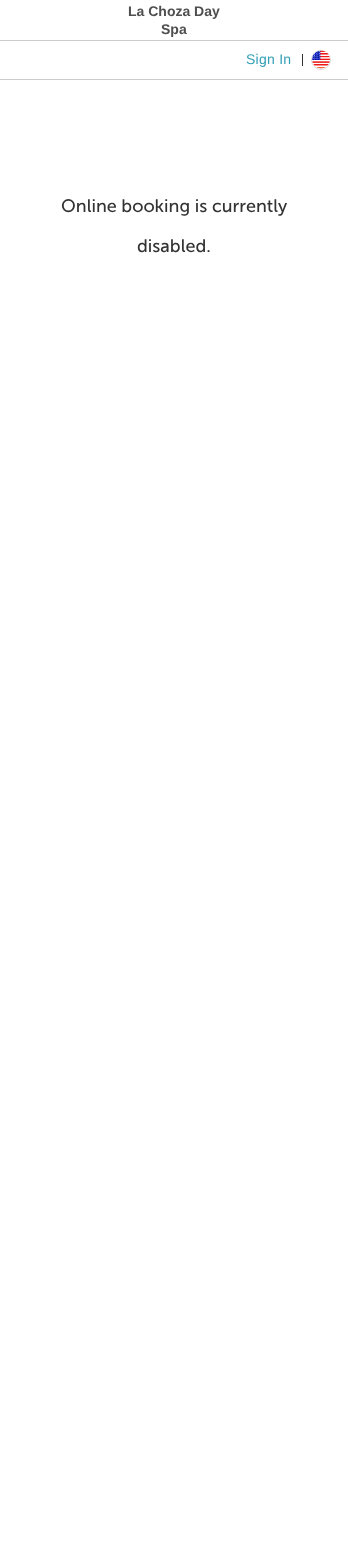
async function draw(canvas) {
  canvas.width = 348
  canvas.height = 1565
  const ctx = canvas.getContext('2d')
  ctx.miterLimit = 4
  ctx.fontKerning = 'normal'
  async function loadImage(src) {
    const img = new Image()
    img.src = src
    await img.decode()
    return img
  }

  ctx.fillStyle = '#fff'
  ctx.fillRect(0, 0, 348, 1565)
  ctx.fillStyle = '#ccc'
  ctx.filter = 'blur(0.5px)'
  ctx.beginPath()
  ctx.rect(0, 1, 348, 40)
  ctx.fill()
  ctx.filter = 'none'
  ctx.fillStyle = '#fff'
  ctx.fillRect(0, 0, 348, 40)
  ctx.font = 'bold 14px Liberation Sans'
  ctx.fillStyle = '#4f4f4f'
  ctx.fillText('La Choza Day', 128, 16)
  ctx.fillText('Spa', 161, 34)
  ctx.fillStyle = '#ccc'
  ctx.fillRect(0, 79, 348, 1)
  ctx.letterSpacing = '0.25px'
  ctx.font = '14px Liberation Sans'
  ctx.fillStyle = '#319fb5'
  ctx.fillText('Sign In', 246, 64)
  ctx.fillStyle = '#333'
  ctx.fillRect(302, 54, 1, 12)
  ctx.beginPath()
  ctx.arc(321, 60, 9.5, 0, 2 * Math.PI)
  ctx.strokeStyle = '#dcdcdc'
  ctx.stroke()
  ctx.drawImage(await loadImage('image0.png'), 312, 50, 18, 19)
  ctx.letterSpacing = '0px'
  ctx.font = '18px "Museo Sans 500"'
  ctx.fillText('Online booking is currently', 61, 212)
  ctx.fillText('disabled.', 137, 252)
}

draw(document.querySelector('canvas'))
